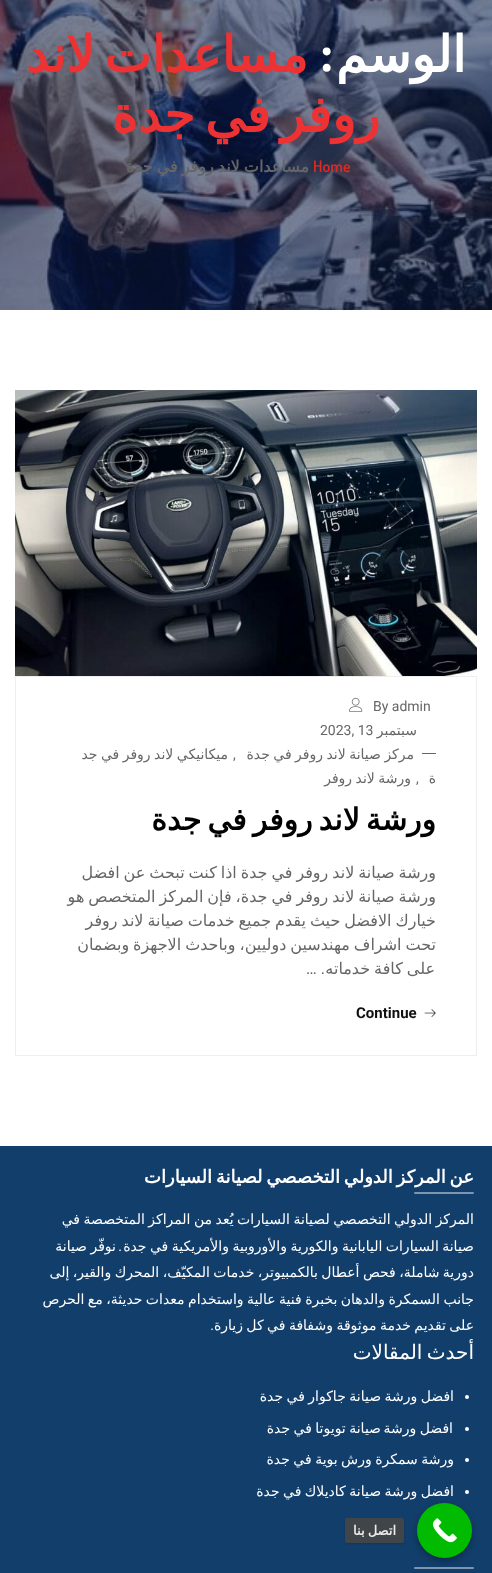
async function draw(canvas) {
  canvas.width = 492
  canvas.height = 1573
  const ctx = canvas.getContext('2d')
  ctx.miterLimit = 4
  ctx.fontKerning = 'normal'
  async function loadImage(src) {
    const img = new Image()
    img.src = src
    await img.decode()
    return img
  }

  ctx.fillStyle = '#fff'
  ctx.fillRect(0, 0, 492, 1573)
  ctx.drawImage(await loadImage('image0.png'), 0, 0, 492, 310)
  ctx.direction = 'rtl'
  ctx.font = 'bold 50px DejaVu Sans'
  ctx.fillText('الوسم', 466, 72)
  ctx.font = 'bold 50px Barlow'
  ctx.fillText(':', 336, 72)
  ctx.wordSpacing = '-6px'
  ctx.font = 'bold 50px DejaVu Sans'
  ctx.fillStyle = '#ee3233'
  ctx.fillText('مساعدات لاند', 308, 72)
  ctx.fillText('روفر في جدة', 380, 132)
  ctx.wordSpacing = '0px'
  ctx.direction = 'ltr'
  ctx.font = '600 16px Dosis'
  ctx.fillStyle = '#e32920'
  ctx.fillText('Home', 313, 172)
  ctx.wordSpacing = '-1px'
  ctx.direction = 'rtl'
  ctx.font = 'bold 16px DejaVu Sans'
  ctx.fillStyle = '#666'
  ctx.fillText('مساعدات لاند روفر في جدة', 309, 172)
  ctx.drawImage(await loadImage('image1.png'), 15, 390, 462, 286)
  ctx.strokeStyle = '#eee'
  ctx.strokeRect(15.5, 676.5, 461, 379)
  ctx.wordSpacing = '0px'
  ctx.direction = 'ltr'
  ctx.font = '14px Roboto'
  ctx.fillText('By admin', 373, 711)
  ctx.drawImage(await loadImage('image2.png'), 349, 697, 14, 15)
  ctx.direction = 'rtl'
  ctx.font = '14px DejaVu Sans'
  ctx.fillText('سبتمبر', 417, 735)
  ctx.direction = 'ltr'
  ctx.font = '14px Roboto'
  ctx.fillText('2023, 13', 320, 735)
  ctx.fillRect(422, 753, 14, 1)
  ctx.wordSpacing = '-1px'
  ctx.direction = 'rtl'
  ctx.font = '14px DejaVu Sans'
  ctx.fillText('مركز صيانة لاند روفر في جدة', 414, 759)
  ctx.fillText('ميكانيكي لاند روفر في جد', 228, 759)
  ctx.wordSpacing = '0px'
  ctx.direction = 'ltr'
  ctx.font = '14px Roboto'
  ctx.fillText(',', 233, 759)
  ctx.direction = 'rtl'
  ctx.font = '14px DejaVu Sans'
  ctx.fillText('ة', 436, 783)
  ctx.direction = 'ltr'
  ctx.font = '14px Roboto'
  ctx.fillText(',', 416, 783)
  ctx.wordSpacing = '-1px'
  ctx.direction = 'rtl'
  ctx.font = '14px DejaVu Sans'
  ctx.fillText('ورشة لاند روفر', 411, 783)
  ctx.wordSpacing = '-3.5px'
  ctx.font = 'bold 30px DejaVu Sans'
  ctx.fillStyle = '#010101'
  ctx.fillText('ورشة لاند روفر في جدة', 436, 830)
  ctx.wordSpacing = '-1.1px'
  ctx.font = '16px DejaVu Sans'
  ctx.fillStyle = '#666'
  ctx.fillText('ورشة صيانة لاند روفر في جدة اذا كنت تبحث عن افضل', 436, 878)
  ctx.fillText('ورشة صيانة لاند روفر في جدة، فإن المركز المتخصص هو', 436, 902)
  ctx.fillText('خيارك الافضل حيث يقدم جميع خدمات صيانة لاند روفر', 436, 926)
  ctx.fillText('تحت اشراف مهندسين دوليين، وباحدث الاجهزة وبضمان', 436, 950)
  ctx.fillText('على كافة خدماته', 435, 974)
  ctx.wordSpacing = '0px'
  ctx.font = '16px Roboto'
  ctx.fillText('. …', 325, 974)
  ctx.drawImage(await loadImage('image3.png'), 424, 1009, 12, 8)
  ctx.direction = 'ltr'
  ctx.font = 'bold 15px Roboto'
  ctx.fillStyle = '#101010'
  ctx.fillText('Continue', 356, 1018)
  ctx.fillStyle = '#123e6b'
  ctx.fillRect(0, 1146, 492, 427)
  ctx.wordSpacing = '-2px'
  ctx.direction = 'rtl'
  ctx.font = 'bold 18px DejaVu Sans'
  ctx.fillStyle = '#fff'
  ctx.fillText('عن المركز الدولي التخصصي لصيانة السيارات', 474, 1183)
  ctx.fillStyle = '#7d95ae'
  ctx.beginPath()
  ctx.roundRect(414, 1192, 60, 2, 1)
  ctx.fill()
  ctx.wordSpacing = '-1px'
  ctx.font = '14px DejaVu Sans'
  ctx.fillStyle = '#fff'
  ctx.fillText('المركز الدولي التخصصي لصيانة السيارات يُعد من المراكز المتخصصة في', 474, 1224)
  ctx.fillText('صيانة السيارات اليابانية والكورية والأوروبية والأمريكية في جدة', 474, 1251)
  ctx.wordSpacing = '0px'
  ctx.font = '14px Roboto'
  ctx.fillText('.', 122, 1251)
  ctx.wordSpacing = '-1px'
  ctx.font = '14px DejaVu Sans'
  ctx.fillText('نوفّر صيانة', 116, 1251)
  ctx.fillText('دورية شاملة، فحص أعطال بالكمبيوتر، خدمات المكيّف، المحرك والقير، إلى', 474, 1277)
  ctx.fillText('جانب السمكرة والدهان بخبرة فنية عالية واستخدام معدات حديثة، مع الحرص', 474, 1304)
  ctx.fillText('على تقديم خدمة موثوقة وشفافة في كل زيارة', 474, 1330)
  ctx.wordSpacing = '0px'
  ctx.font = '14px Roboto'
  ctx.fillText('.', 214, 1330)
  ctx.wordSpacing = '-2px'
  ctx.font = '20px DejaVu Sans'
  ctx.fillText('أحدث المقالات', 474, 1359)
  ctx.beginPath()
  ctx.arc(467, 1397, 2, 0, 2 * Math.PI)
  ctx.fill()
  ctx.wordSpacing = '-1px'
  ctx.font = '14px DejaVu Sans'
  ctx.fillText('افضل ورشة صيانة جاكوار في جدة', 454, 1401)
  ctx.beginPath()
  ctx.arc(467, 1429, 2, 0, 2 * Math.PI)
  ctx.fill()
  ctx.fillText('افضل ورشة', 453, 1433)
  ctx.fillText('صيانة تويوتا في جدة', 381, 1433)
  ctx.beginPath()
  ctx.arc(467, 1460, 2, 0, 2 * Math.PI)
  ctx.fill()
  ctx.fillText('ورشة سمكرة ورش بوية في جدة', 454, 1464)
  ctx.beginPath()
  ctx.arc(467, 1492, 2, 0, 2 * Math.PI)
  ctx.fill()
  ctx.fillText('افضل ورشة صيانة كاديلاك في جدة', 454, 1496)
  ctx.fillStyle = '#7d95ae'
  ctx.beginPath()
  ctx.roundRect(414, 1567, 60, 2, 1)
  ctx.fill()
  ctx.fillStyle = '#0000004d'
  ctx.filter = 'blur(3px)'
  ctx.beginPath()
  ctx.roundRect(417, 1506, 55, 55, 27.5)
  ctx.fill()
  ctx.filter = 'none'
  ctx.fillStyle = '#0b0'
  ctx.beginPath()
  ctx.arc(444.5, 1530.5, 27.5, 0, 2 * Math.PI)
  ctx.fill()
  ctx.drawImage(await loadImage('image4.png'), 432, 1518, 25, 25)
  ctx.save()
  ctx.beginPath()
  ctx.moveTo(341, 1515)
  ctx.lineTo(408, 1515)
  ctx.lineTo(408, 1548)
  ctx.lineTo(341, 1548)
  ctx.closePath()
  ctx.moveTo(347, 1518)
  ctx.lineTo(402, 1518)
  ctx.bezierCurveTo(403, 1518, 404, 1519, 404, 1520)
  ctx.lineTo(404, 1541)
  ctx.bezierCurveTo(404, 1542, 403, 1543, 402, 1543)
  ctx.lineTo(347, 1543)
  ctx.bezierCurveTo(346, 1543, 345, 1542, 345, 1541)
  ctx.lineTo(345, 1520)
  ctx.bezierCurveTo(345, 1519, 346, 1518, 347, 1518)
  ctx.closePath()
  ctx.clip('evenodd')
  ctx.fillStyle = '#00000026'
  ctx.filter = 'blur(1px)'
  ctx.beginPath()
  ctx.roundRect(345, 1519, 59, 25, 2)
  ctx.fill()
  ctx.filter = 'none'
  ctx.restore()
  ctx.fillStyle = '#464646e6'
  ctx.beginPath()
  ctx.roundRect(345, 1518, 59, 25, 2)
  ctx.fill()
  ctx.font = 'bold 13px DejaVu Sans'
  ctx.fillStyle = '#ececec'
  ctx.fillText('اتصل بنا', 396, 1535)
}

draw(document.querySelector('canvas'))
